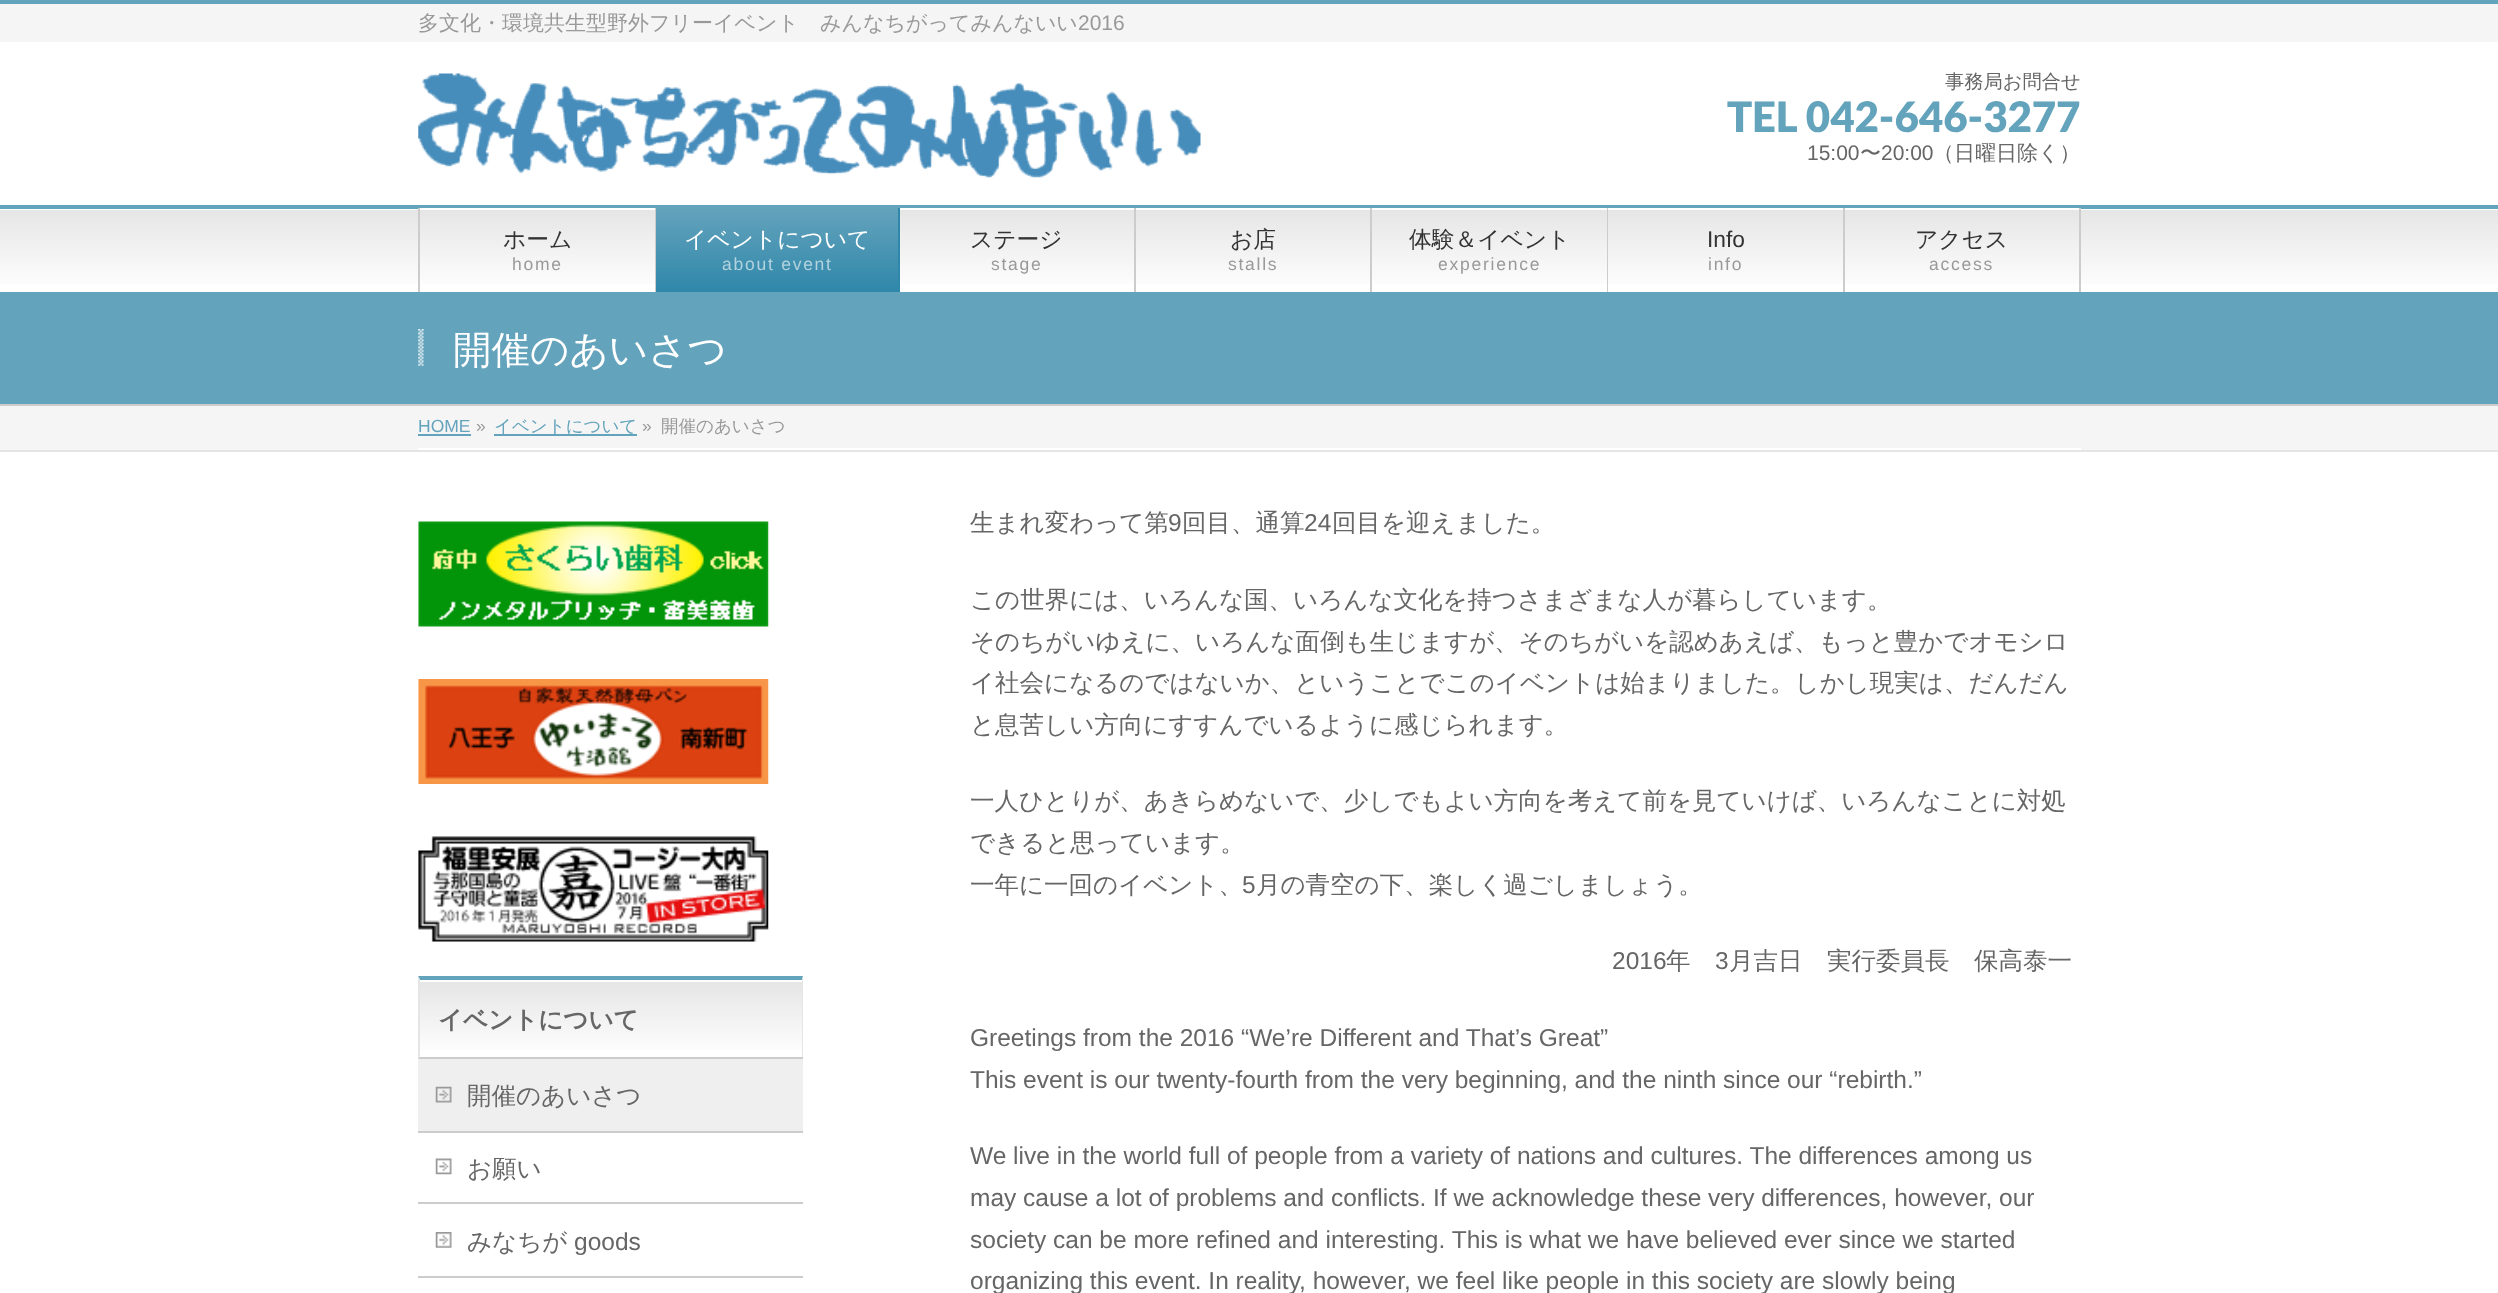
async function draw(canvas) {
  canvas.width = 2498
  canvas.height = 1293
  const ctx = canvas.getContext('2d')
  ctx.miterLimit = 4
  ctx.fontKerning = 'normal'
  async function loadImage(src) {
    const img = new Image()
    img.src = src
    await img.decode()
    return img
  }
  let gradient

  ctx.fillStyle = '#fff'
  ctx.fillRect(0, 0, 2498, 1293)
  ctx.fillStyle = '#f5f5f5'
  ctx.fillRect(0, 4, 2498, 38)
  ctx.fillStyle = '#64a3bc'
  ctx.fillRect(0, 0, 2498, 4)
  ctx.font = '500 21px WenQuanYi Zen Hei'
  ctx.fillStyle = '#999'
  ctx.fillText('多文化・環境共生型野外フリーイベント　みんなちがってみんないい', 418, 30)
  ctx.font = '21px Liberation Sans'
  ctx.fillText('2016', 1078, 30)
  ctx.drawImage(await loadImage('image0.png'), 418, 73, 783, 105)
  ctx.font = '500 19.25px WenQuanYi Zen Hei'
  ctx.fillStyle = '#666'
  ctx.fillText('事務局お問合せ', 1945, 88)
  ctx.font = '900 42px Lato'
  ctx.fillStyle = '#64a3bc'
  ctx.fillText('TEL 042-646-3277', 1727, 132)
  ctx.font = '21px Liberation Sans'
  ctx.fillStyle = '#666'
  ctx.fillText('15:00', 1807, 160)
  ctx.font = '500 21px WenQuanYi Zen Hei'
  ctx.fillText('〜', 1860, 160)
  ctx.font = '21px Liberation Sans'
  ctx.fillText('20:00', 1881, 160)
  ctx.font = '500 21px WenQuanYi Zen Hei'
  ctx.fillText('（日曜日除く）', 1933, 160)
  gradient = ctx.createLinearGradient(1250, 208, 1250, 292)
  gradient.addColorStop(0, '#e5e5e5')
  gradient.addColorStop(1, '#fff')
  ctx.fillStyle = gradient
  ctx.fillRect(0, 210, 2498, 74)
  ctx.fillStyle = '#64a3bc'
  ctx.fillRect(0, 205, 2498, 4)
  ctx.fillStyle = '#ccc'
  ctx.fillRect(418, 208, 2, 84)
  ctx.fillStyle = '#fff'
  ctx.fillRect(420, 208, 235, 1)
  ctx.fillStyle = '#ccc'
  ctx.fillRect(655, 208, 1, 84)
  ctx.font = '500 22.75px WenQuanYi Zen Hei'
  ctx.fillStyle = '#333'
  ctx.fillText('ホーム', 503, 247)
  ctx.letterSpacing = '1.75px'
  ctx.font = '17.5px Liberation Sans'
  ctx.fillStyle = '#999'
  ctx.fillText('home', 512, 270)
  gradient = ctx.createLinearGradient(777, 208, 777, 292)
  gradient.addColorStop(0, '#64a3bc')
  gradient.addColorStop(1, '#2f87aa')
  ctx.fillStyle = gradient
  ctx.fillRect(656, 209, 242, 83)
  ctx.fillStyle = '#2f87aa'
  ctx.fillRect(898, 208, 2, 84)
  ctx.letterSpacing = '0px'
  ctx.font = '500 22.75px WenQuanYi Zen Hei'
  ctx.fillStyle = '#fff'
  ctx.fillText('イベントについて', 684, 247)
  ctx.letterSpacing = '1.75px'
  ctx.font = '17.5px Liberation Sans'
  ctx.fillStyle = '#b3d3df'
  ctx.fillText('about event', 722, 270)
  ctx.fillStyle = '#fff'
  ctx.fillRect(900, 208, 234, 1)
  ctx.fillStyle = '#ccc'
  ctx.fillRect(1134, 208, 2, 84)
  ctx.letterSpacing = '0px'
  ctx.font = '500 22.75px WenQuanYi Zen Hei'
  ctx.fillStyle = '#333'
  ctx.fillText('ステージ', 970, 247)
  ctx.letterSpacing = '1.75px'
  ctx.font = '17.5px Liberation Sans'
  ctx.fillStyle = '#999'
  ctx.fillText('stage', 991, 270)
  ctx.fillStyle = '#fff'
  ctx.fillRect(1136, 208, 234, 1)
  ctx.fillStyle = '#ccc'
  ctx.fillRect(1370, 208, 2, 84)
  ctx.letterSpacing = '0px'
  ctx.font = '500 22.75px WenQuanYi Zen Hei'
  ctx.fillStyle = '#333'
  ctx.fillText('お店', 1230, 247)
  ctx.letterSpacing = '1.75px'
  ctx.font = '17.5px Liberation Sans'
  ctx.fillStyle = '#999'
  ctx.fillText('stalls', 1228, 270)
  ctx.fillStyle = '#fff'
  ctx.fillRect(1372, 208, 235, 1)
  ctx.fillStyle = '#ccc'
  ctx.fillRect(1607, 208, 1, 84)
  ctx.letterSpacing = '0px'
  ctx.font = '500 22.75px WenQuanYi Zen Hei'
  ctx.fillStyle = '#333'
  ctx.fillText('体験＆イベント', 1409, 247)
  ctx.letterSpacing = '1.75px'
  ctx.font = '17.5px Liberation Sans'
  ctx.fillStyle = '#999'
  ctx.fillText('experience', 1438, 270)
  ctx.fillStyle = '#fff'
  ctx.fillRect(1608, 208, 235, 1)
  ctx.fillStyle = '#ccc'
  ctx.fillRect(1843, 208, 2, 84)
  ctx.letterSpacing = '0px'
  ctx.font = '22.75px Liberation Sans'
  ctx.fillStyle = '#333'
  ctx.fillText('Info', 1707, 247)
  ctx.letterSpacing = '1.75px'
  ctx.font = '17.5px Liberation Sans'
  ctx.fillStyle = '#999'
  ctx.fillText('info', 1708, 270)
  ctx.fillStyle = '#fff'
  ctx.fillRect(1845, 208, 234, 1)
  ctx.fillStyle = '#ccc'
  ctx.fillRect(2079, 208, 2, 84)
  ctx.letterSpacing = '0px'
  ctx.font = '500 22.75px WenQuanYi Zen Hei'
  ctx.fillStyle = '#333'
  ctx.fillText('アクセス', 1915, 247)
  ctx.letterSpacing = '1.75px'
  ctx.font = '17.5px Liberation Sans'
  ctx.fillStyle = '#999'
  ctx.fillText('access', 1929, 270)
  ctx.fillStyle = '#64a3bc'
  ctx.fillRect(0, 292, 2498, 112)
  ctx.fillStyle = '#ccc'
  ctx.fillRect(0, 404, 2498, 2)
  ctx.drawImage(await loadImage('image1.png'), 418, 329, 6, 37)
  ctx.letterSpacing = '0px'
  ctx.font = '500 38.5px WenQuanYi Zen Hei'
  ctx.fillStyle = '#fff'
  ctx.fillText('開催のあいさつ', 453, 363)
  ctx.fillStyle = '#f5f5f5'
  ctx.fillRect(0, 406, 2498, 44)
  ctx.fillStyle = '#e5e5e5'
  ctx.fillRect(0, 450, 2498, 2)
  ctx.fillStyle = '#fff'
  ctx.fillRect(418, 448, 1663, 2)
  ctx.font = '17.5px Liberation Sans'
  ctx.fillStyle = '#64a3bc'
  ctx.fillText('HOME', 418, 432)
  ctx.fillRect(418, 434, 53, 2)
  ctx.fillStyle = '#999'
  ctx.fillText('»', 476, 432)
  ctx.fillStyle = '#64a3bc'
  ctx.fillRect(494, 434, 143, 2)
  ctx.font = '500 17.5px WenQuanYi Zen Hei'
  ctx.fillText('イベントについて', 494, 432)
  ctx.font = '17.5px Liberation Sans'
  ctx.fillStyle = '#999'
  ctx.fillText('»', 642, 432)
  ctx.font = '500 17.5px WenQuanYi Zen Hei'
  ctx.fillText('開催のあいさつ', 661, 432)
  ctx.drawImage(await loadImage('image2.png'), 418, 521, 351, 106)
  ctx.drawImage(await loadImage('image3.png'), 418, 679, 351, 105)
  ctx.drawImage(await loadImage('image4.png'), 418, 836, 351, 106)
  gradient = ctx.createLinearGradient(420, 980, 420, 1057)
  gradient.addColorStop(0, '#e5e5e5')
  gradient.addColorStop(1, '#fff')
  ctx.fillStyle = gradient
  ctx.fillRect(420, 982, 382, 68)
  ctx.fillStyle = '#64a3bc'
  ctx.beginPath()
  ctx.moveTo(418, 976)
  ctx.lineTo(803, 976)
  ctx.lineTo(802, 980)
  ctx.lineTo(420, 980)
  ctx.closePath()
  ctx.fill()
  ctx.fillStyle = '#e5e5e5'
  ctx.beginPath()
  ctx.moveTo(803, 976)
  ctx.lineTo(803, 1059)
  ctx.lineTo(802, 1057)
  ctx.lineTo(802, 980)
  ctx.closePath()
  ctx.fill()
  ctx.fillStyle = '#ccc'
  ctx.fillRect(418, 1057, 385, 2)
  ctx.fillStyle = '#e5e5e5'
  ctx.beginPath()
  ctx.moveTo(418, 1059)
  ctx.lineTo(418, 976)
  ctx.lineTo(420, 980)
  ctx.lineTo(420, 1057)
  ctx.closePath()
  ctx.fill()
  ctx.font = 'bold 24.5px WenQuanYi Zen Hei'
  ctx.fillStyle = '#666'
  ctx.fillText('イベントについて', 438, 1028)
  ctx.fillStyle = '#ccc'
  ctx.fillRect(418, 1131, 385, 2)
  ctx.fillStyle = '#efefef'
  ctx.fillRect(418, 1059, 385, 72)
  ctx.drawImage(await loadImage('image5.png'), 435, 1086, 17, 17)
  ctx.font = '500 24.5px WenQuanYi Zen Hei'
  ctx.fillStyle = '#666'
  ctx.fillText('開催のあいさつ', 467, 1104)
  ctx.fillStyle = '#ccc'
  ctx.fillRect(418, 1202, 385, 2)
  ctx.drawImage(await loadImage('image6.png'), 435, 1158, 17, 17)
  ctx.fillStyle = '#666'
  ctx.fillText('お願い', 467, 1177)
  ctx.fillStyle = '#ccc'
  ctx.fillRect(418, 1276, 385, 2)
  ctx.drawImage(await loadImage('image7.png'), 435, 1232, 17, 16)
  ctx.fillStyle = '#666'
  ctx.fillText('みなちが', 467, 1250)
  ctx.font = '24.5px Liberation Sans'
  ctx.fillText('goods', 574, 1250)
  ctx.font = '500 24.5px WenQuanYi Zen Hei'
  ctx.fillText('生まれ変わって第', 970, 531)
  ctx.font = '24.5px Liberation Sans'
  ctx.fillText('9', 1168, 531)
  ctx.font = '500 24.5px WenQuanYi Zen Hei'
  ctx.fillText('回目、通算', 1182, 531)
  ctx.font = '24.5px Liberation Sans'
  ctx.fillText('24', 1304, 531)
  ctx.font = '500 24.5px WenQuanYi Zen Hei'
  ctx.fillText('回目を迎えました。', 1332, 531)
  ctx.fillText('この世界には、いろんな国、いろんな文化を持つさまざまな人が暮らしています。', 970, 608)
  ctx.fillText('そのちがいゆえに、いろんな面倒も生じますが、そのちがいを認めあえば、もっと豊かでオモシロ', 970, 650)
  ctx.fillText('イ社会になるのではないか、ということでこのイベントは始まりました。しかし現実は、だんだん', 970, 691)
  ctx.fillText('と息苦しい方向にすすんでいるように感じられます。', 970, 733)
  ctx.fillText('一人ひとりが、あきらめないで、少しでもよい方向を考えて前を見ていけば、いろんなことに対処', 970, 809)
  ctx.fillText('できると思っています。', 970, 851)
  ctx.fillText('一年に一回のイベント、', 970, 893)
  ctx.font = '24.5px Liberation Sans'
  ctx.fillText('5', 1242, 893)
  ctx.font = '500 24.5px WenQuanYi Zen Hei'
  ctx.fillText('月の青空の下、楽しく過ごしましょう。', 1256, 893)
  ctx.font = '24.5px Liberation Sans'
  ctx.fillText('2016', 1612, 969)
  ctx.font = '500 24.5px WenQuanYi Zen Hei'
  ctx.fillText('年', 1666, 969)
  ctx.font = '24.5px Liberation Sans'
  ctx.fillText('3', 1715, 969)
  ctx.font = '500 24.5px WenQuanYi Zen Hei'
  ctx.fillText('月吉日　実行委員長　保高泰一', 1729, 969)
  ctx.font = '24.5px Liberation Sans'
  ctx.fillText('Greetings from the 2016 “We’re Different and That’s Great”', 970, 1046)
  ctx.fillText('This event is our twenty-fourth from the very beginning, and the ninth since our “rebirth.”', 970, 1088)
  ctx.fillText('We live in the world full of people from a variety of nations and cultures. The differences among us', 970, 1164)
  ctx.fillText('may cause a lot of problems and conflicts. If we acknowledge these very differences, however, our', 970, 1206)
  ctx.fillText('society can be more refined and interesting. This is what we have believed ever since we started', 970, 1248)
  ctx.fillText('organizing this event. In reality, however, we feel like people in this society are slowly being', 970, 1289)
}

draw(document.querySelector('canvas'))
